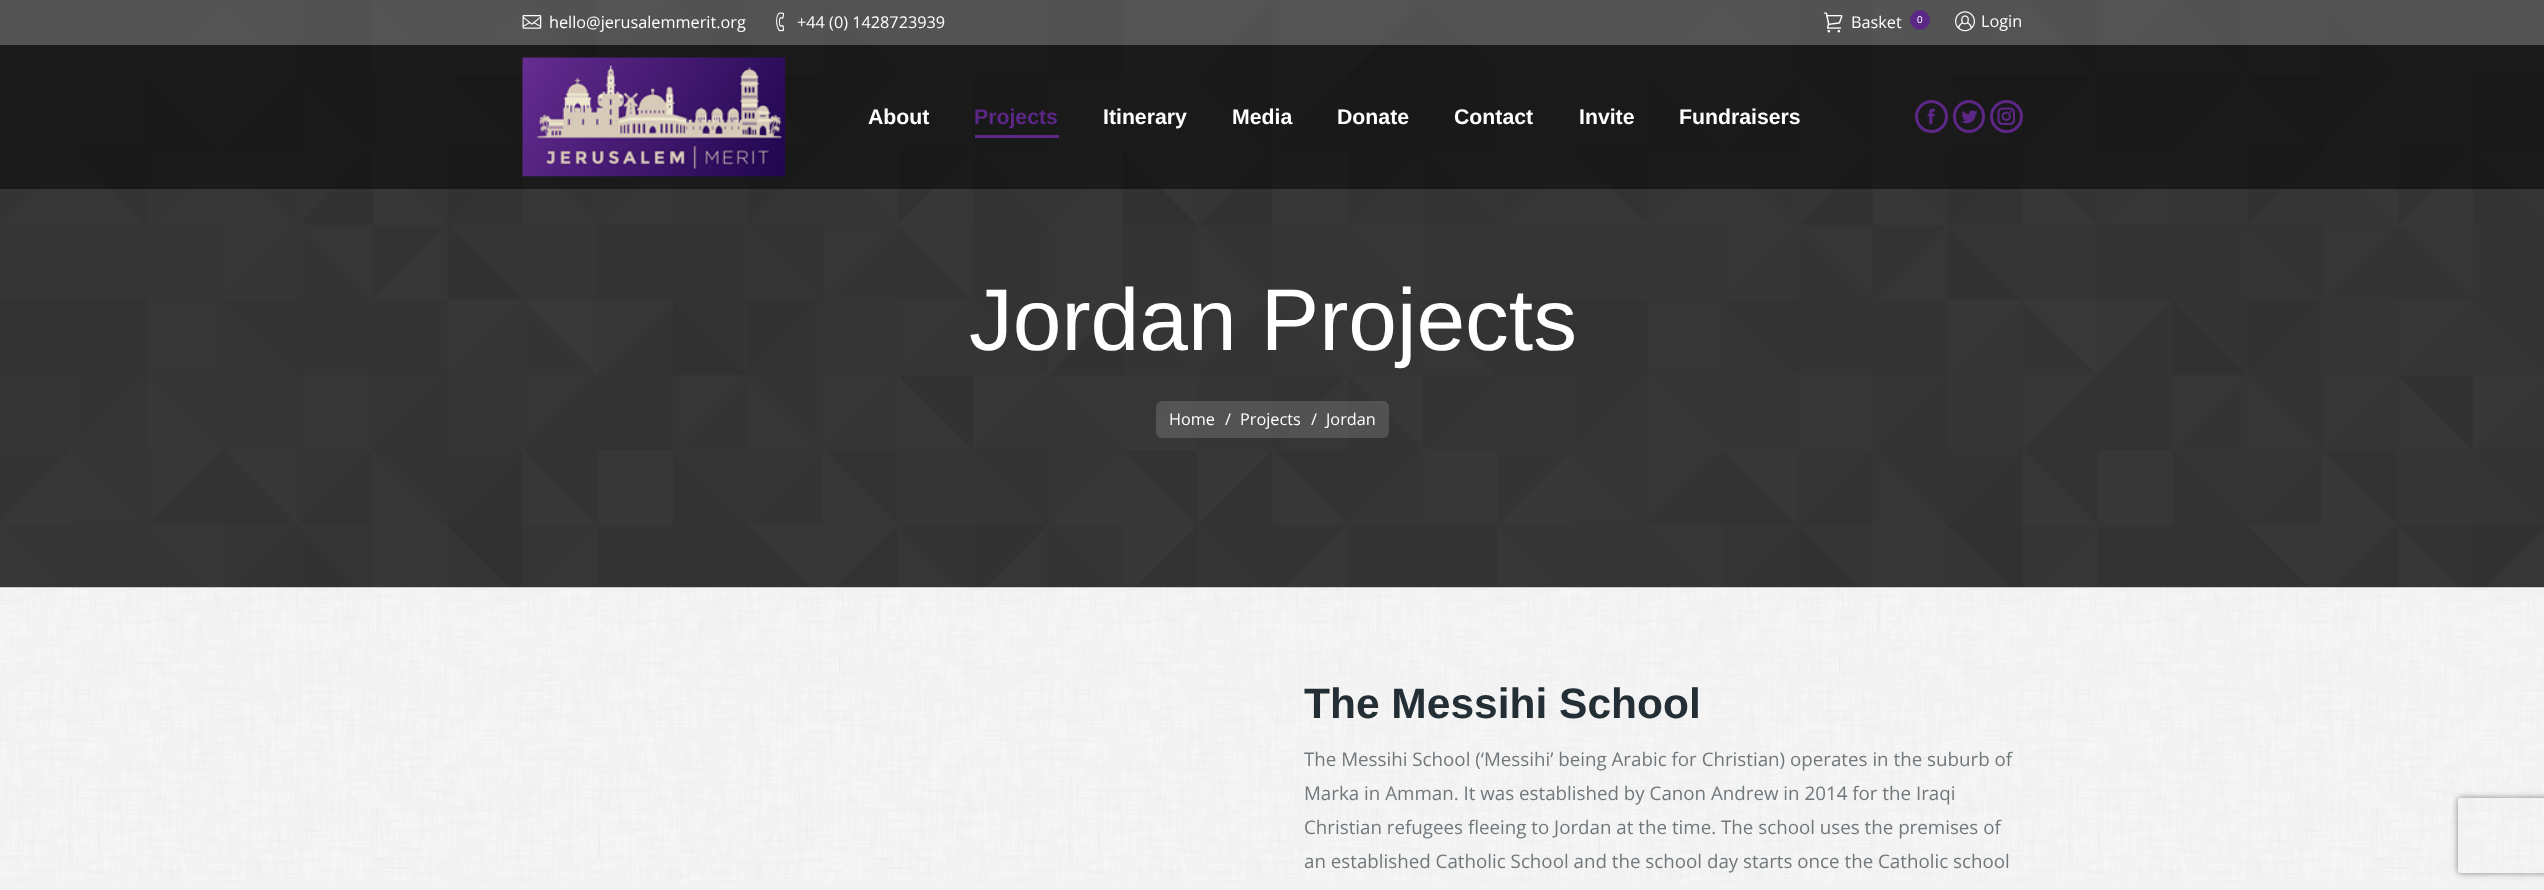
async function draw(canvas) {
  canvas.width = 2544
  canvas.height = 890
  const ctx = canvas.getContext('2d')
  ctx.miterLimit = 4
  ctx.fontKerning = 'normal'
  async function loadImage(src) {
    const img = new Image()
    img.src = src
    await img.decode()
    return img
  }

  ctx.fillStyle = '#fff'
  ctx.fillRect(0, 0, 2544, 890)
  ctx.drawImage(await loadImage('image8.png'), 0, 0, 2544, 588)
  ctx.fillStyle = '#00000080'
  ctx.fillRect(0, 0, 2544, 189)
  ctx.fillStyle = '#ffffff40'
  ctx.fillRect(0, 0, 2544, 45)
  ctx.drawImage(await loadImage('image0.png'), 522, 15, 20, 14)
  ctx.font = '16.25px Open Sans'
  ctx.fillStyle = '#fff'
  ctx.fillText('hello@jerusalemmerit.org', 549, 28)
  ctx.drawImage(await loadImage('image1.png'), 776, 12, 9, 20)
  ctx.fillText('+44 (0) 1428723939', 797, 28)
  ctx.drawImage(await loadImage('image2.png'), 1823, 12, 20, 21)
  ctx.fillText('Basket', 1851, 28)
  ctx.fillStyle = '#5c2787'
  ctx.beginPath()
  ctx.arc(1920, 20, 10, 0, 2 * Math.PI)
  ctx.fill()
  ctx.font = '10px Liberation Sans'
  ctx.fillStyle = '#fff'
  ctx.fillText('0', 1917, 23)
  ctx.drawImage(await loadImage('image3.png'), 1955, 11, 20, 21)
  ctx.font = '16.25px Open Sans'
  ctx.fillText('Login', 1981, 27)
  ctx.drawImage(await loadImage('image4.png'), 522, 57, 263, 120)
  ctx.font = 'bold 21.25px Liberation Sans'
  ctx.fillText('About', 868, 124)
  ctx.fillStyle = '#5c2787'
  ctx.fillText('Projects', 974, 124)
  ctx.fillRect(975, 135, 84, 3)
  ctx.fillStyle = '#fff'
  ctx.fillText('Itinerary', 1103, 124)
  ctx.fillText('Media', 1232, 124)
  ctx.fillText('Donate', 1337, 124)
  ctx.fillText('Contact', 1454, 124)
  ctx.fillText('Invite', 1579, 124)
  ctx.fillText('Fundraisers', 1679, 124)
  ctx.beginPath()
  ctx.arc(1931.5, 116.5, 15, 0, 2 * Math.PI)
  ctx.strokeStyle = '#5c2787'
  ctx.lineWidth = 3
  ctx.stroke()
  ctx.drawImage(await loadImage('image5.png'), 1927, 108, 8, 16)
  ctx.beginPath()
  ctx.roundRect(1954.5, 101.5, 29, 30, 14.5)
  ctx.stroke()
  ctx.drawImage(await loadImage('image6.png'), 1961, 110, 17, 14)
  ctx.beginPath()
  ctx.arc(2006.5, 116.5, 15, 0, 2 * Math.PI)
  ctx.stroke()
  ctx.drawImage(await loadImage('image7.png'), 1997, 107, 18, 18)
  ctx.font = '87.5px Liberation Sans'
  ctx.fillText('Jordan Projects', 969, 350)
  ctx.fillStyle = '#ffffff26'
  ctx.beginPath()
  ctx.roundRect(1156, 401, 233, 37, 6)
  ctx.fill()
  ctx.font = '16.25px Open Sans'
  ctx.fillStyle = '#fff'
  ctx.fillText('Home', 1169, 425)
  ctx.fillText('/', 1225, 425)
  ctx.fillText('Projects', 1240, 425)
  ctx.fillText('/', 1311, 425)
  ctx.fillText('Jordan', 1326, 425)
  ctx.fillStyle = '#f2f3f3'
  ctx.fillRect(0, 882, 2544, 8)
  ctx.drawImage(await loadImage('image9.png'), 0, 587, 2544, 295)
  ctx.font = 'bold 42.5px Liberation Sans'
  ctx.fillStyle = '#242e35'
  ctx.fillText('The Messihi School', 1304, 718)
  ctx.font = '18.75px Open Sans'
  ctx.fillStyle = '#71787c'
  ctx.fillText('The Messihi School (‘Messihi’ being Arabic for Christian) operates in the suburb of', 1304, 766)
  ctx.fillText('Marka in Amman. It was established by Canon Andrew in 2014 for the Iraqi', 1304, 800)
  ctx.fillText('Christian refugees fleeing to Jordan at the time. The school uses the premises of', 1304, 834)
  ctx.fillText('an established Catholic School and the school day starts once the Catholic school', 1304, 868)
  ctx.save()
  ctx.beginPath()
  ctx.moveTo(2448, 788)
  ctx.lineTo(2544, 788)
  ctx.lineTo(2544, 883)
  ctx.lineTo(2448, 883)
  ctx.closePath()
  ctx.moveTo(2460.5, 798)
  ctx.lineTo(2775.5, 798)
  ctx.bezierCurveTo(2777, 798, 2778, 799, 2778, 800.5)
  ctx.lineTo(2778, 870.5)
  ctx.bezierCurveTo(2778, 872, 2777, 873, 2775.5, 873)
  ctx.lineTo(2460.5, 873)
  ctx.bezierCurveTo(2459, 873, 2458, 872, 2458, 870.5)
  ctx.lineTo(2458, 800.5)
  ctx.bezierCurveTo(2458, 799, 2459, 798, 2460.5, 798)
  ctx.closePath()
  ctx.clip('evenodd')
  ctx.fillStyle = '#808080'
  ctx.filter = 'blur(3px)'
  ctx.beginPath()
  ctx.roundRect(2458, 798, 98, 75, 2.5)
  ctx.fill()
  ctx.filter = 'none'
  ctx.restore()
}

draw(document.querySelector('canvas'))
